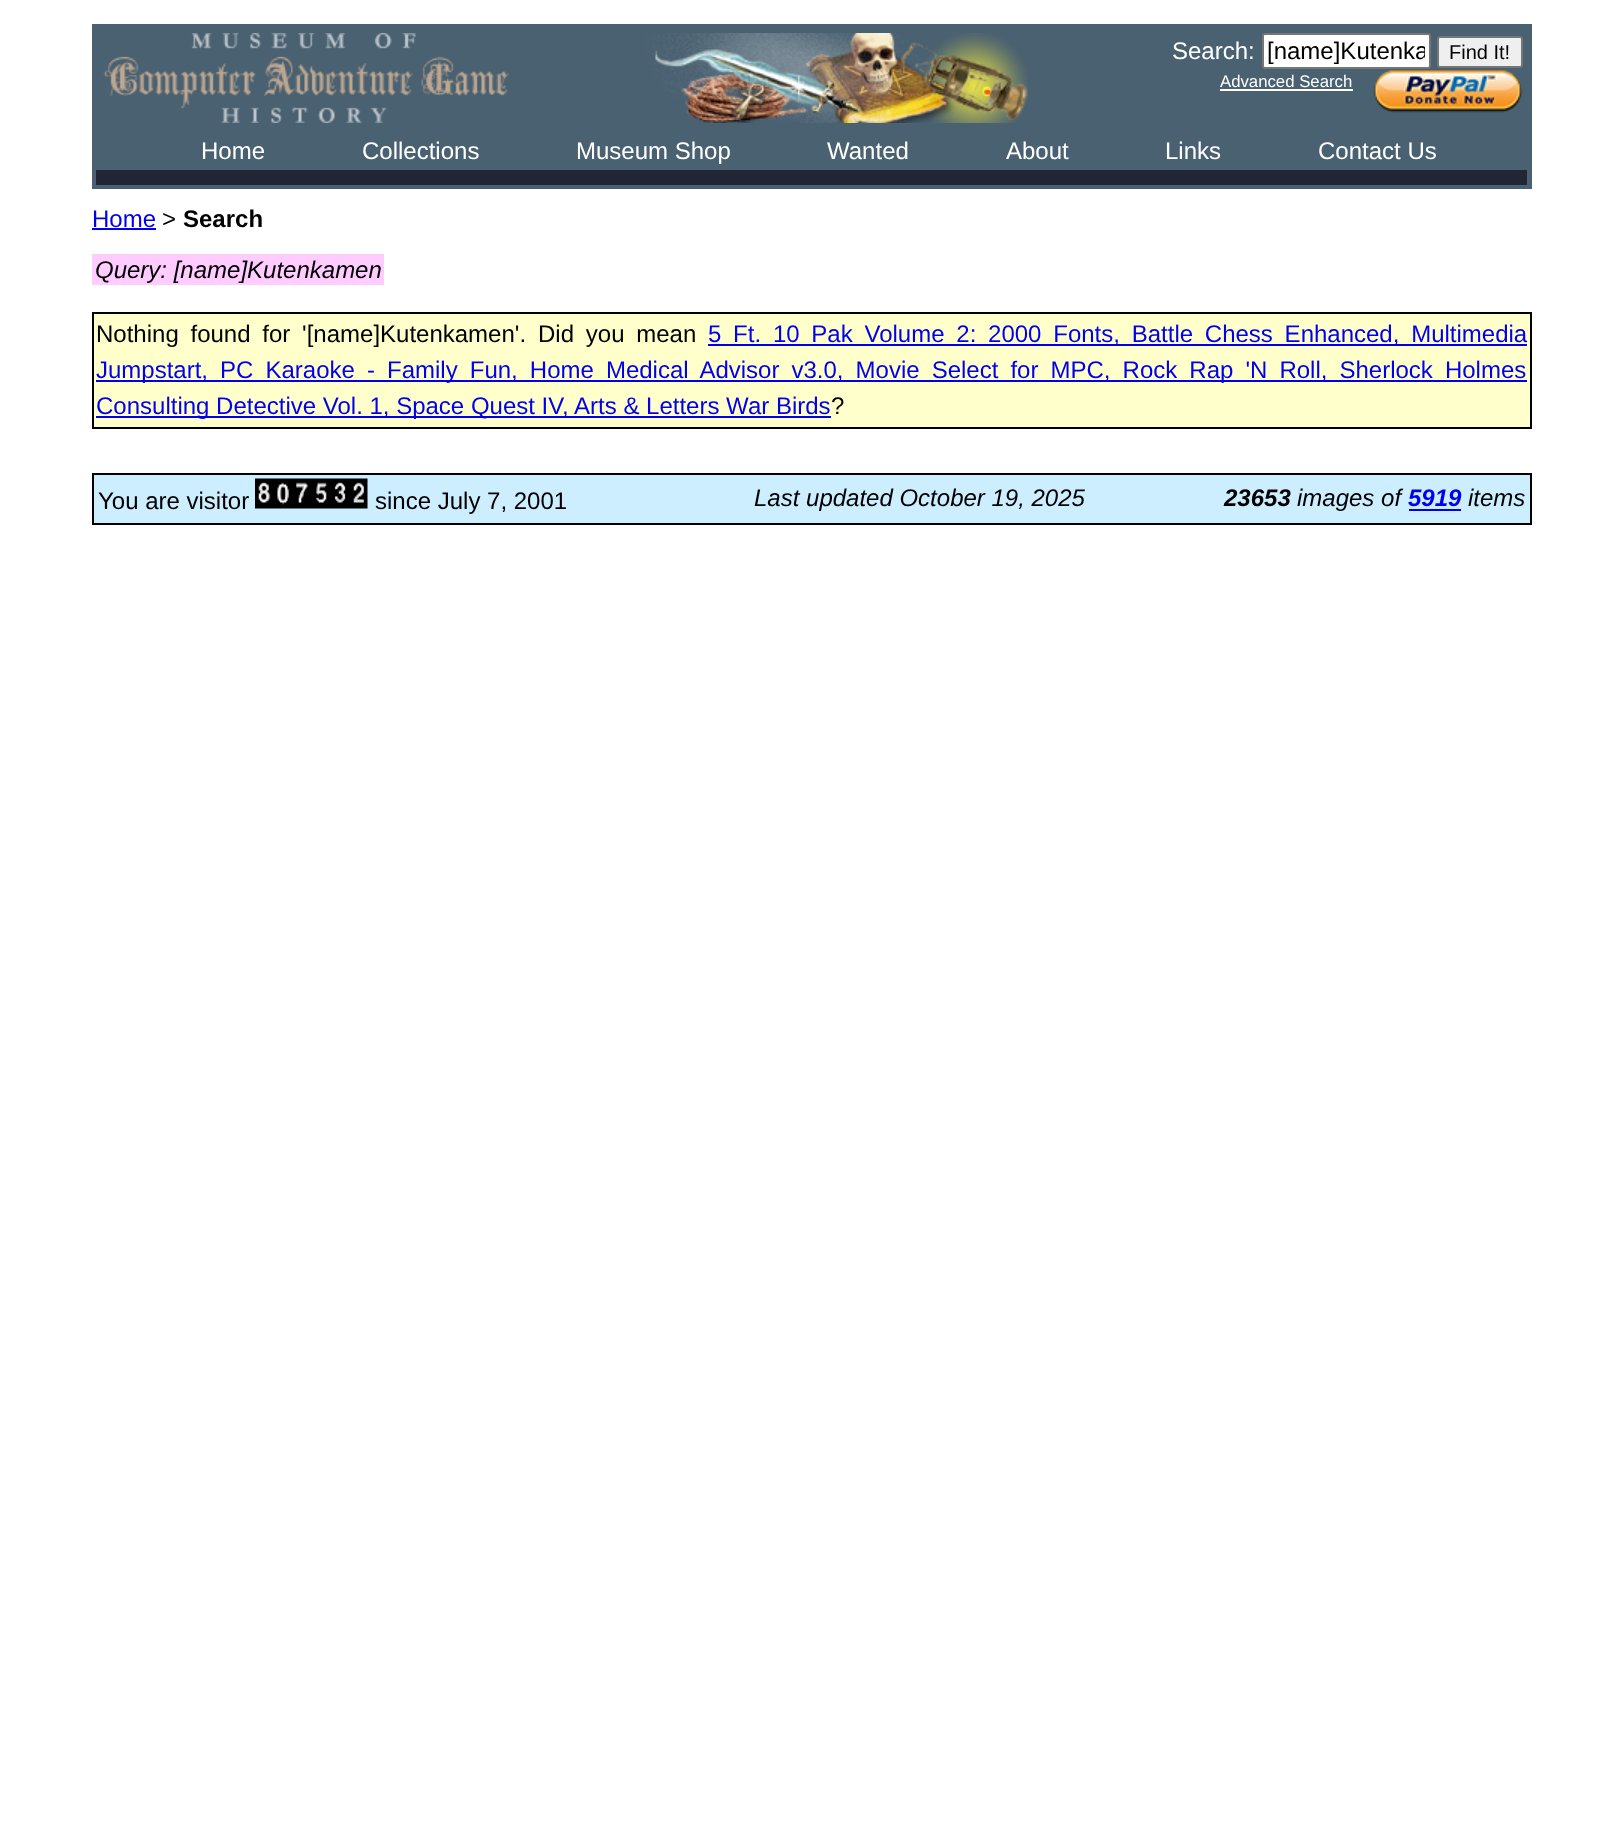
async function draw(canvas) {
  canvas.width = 1622
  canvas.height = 1821
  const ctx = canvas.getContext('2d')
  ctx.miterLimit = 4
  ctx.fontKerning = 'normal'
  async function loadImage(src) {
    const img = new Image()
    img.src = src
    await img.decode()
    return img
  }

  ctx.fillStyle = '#fff'
  ctx.fillRect(0, 0, 1622, 1821)
  ctx.fillStyle = '#4a6171'
  ctx.fillRect(92, 24, 1440, 165)
  ctx.drawImage(await loadImage('image0.png'), 103, 33, 925, 90)
  ctx.font = '24px Liberation Sans'
  ctx.fillStyle = '#fff'
  ctx.fillText('Search:', 1172, 59)
  ctx.beginPath()
  ctx.roundRect(1263, 34, 167, 34, 2)
  ctx.fill()
  ctx.strokeStyle = '#767676'
  ctx.lineWidth = 2
  ctx.stroke()
  ctx.save()
  ctx.beginPath()
  ctx.rect(1268, 38, 157, 27)
  ctx.clip()
  ctx.fillStyle = '#000'
  ctx.fillText('[name]Kutenka', 1267, 59)
  ctx.restore()
  ctx.fillStyle = '#efefef'
  ctx.beginPath()
  ctx.roundRect(1438, 37, 84, 30, 2)
  ctx.fill()
  ctx.stroke()
  ctx.font = '20px Liberation Sans'
  ctx.fillStyle = '#000'
  ctx.fillText('Find It!', 1449, 59)
  ctx.font = '16.75px Liberation Sans'
  ctx.fillStyle = '#fff'
  ctx.fillText('Advanced Search', 1220, 87)
  ctx.fillRect(1220, 89, 133, 2)
  ctx.drawImage(await loadImage('image1.png'), 1373, 70, 150, 43)
  ctx.font = '24px Liberation Sans'
  ctx.fillText('Home', 201, 159)
  ctx.fillText('Collections', 362, 159)
  ctx.fillText('Museum Shop', 576, 159)
  ctx.fillText('Wanted', 827, 159)
  ctx.fillText('About', 1006, 159)
  ctx.fillText('Links', 1165, 159)
  ctx.fillText('Contact Us', 1318, 159)
  ctx.fillStyle = '#222533'
  ctx.fillRect(96, 170, 1431, 15)
  ctx.fillStyle = '#00e'
  ctx.fillText('Home', 92, 227)
  ctx.fillRect(92, 228, 64, 2)
  ctx.fillStyle = '#000'
  ctx.fillText('>', 162, 227)
  ctx.font = 'bold 24px Liberation Sans'
  ctx.fillText('Search', 183, 227)
  ctx.fillStyle = '#fcf'
  ctx.fillRect(92, 254, 292, 31)
  ctx.font = 'italic 24px Liberation Sans'
  ctx.fillStyle = '#000'
  ctx.fillText('Query: [name]Kutenkamen', 95, 278)
  ctx.fillStyle = '#ffc'
  ctx.beginPath()
  ctx.rect(93, 313, 1438, 115)
  ctx.fill()
  ctx.strokeStyle = '#000'
  ctx.stroke()
  ctx.wordSpacing = '5.1px'
  ctx.font = '24px Liberation Sans'
  ctx.fillStyle = '#000'
  ctx.fillText('Nothing found for \'[name]Kutenkamen\'.', 96, 342)
  ctx.fillText('Did you mean', 538, 342)
  ctx.fillStyle = '#00e'
  ctx.fillRect(708, 344, 819, 2)
  ctx.fillText('5 Ft. 10 Pak Volume 2: 2000 Fonts, Battle Chess Enhanced, Multimedia', 708, 342)
  ctx.fillRect(96, 380, 1431, 2)
  ctx.wordSpacing = '5.4px'
  ctx.fillText('Jumpstart, PC Karaoke - Family Fun, Home Medical Advisor v3.0, Movie Select for MPC, Rock Rap \'N Roll, Sherlock Holmes', 96, 378)
  ctx.fillRect(96, 416, 735, 2)
  ctx.wordSpacing = '0px'
  ctx.fillText('Consulting Detective Vol. 1, Space Quest IV, Arts & Letters War Birds', 96, 414)
  ctx.fillStyle = '#000'
  ctx.fillText('?', 831, 414)
  ctx.fillStyle = '#cef'
  ctx.beginPath()
  ctx.rect(93, 474, 1438, 50)
  ctx.fill()
  ctx.stroke()
  ctx.fillStyle = '#000'
  ctx.fillText('You are visitor', 98, 509)
  ctx.drawImage(await loadImage('image2.png'), 255, 478, 113, 31)
  ctx.fillText('since July 7, 2001', 375, 509)
  ctx.font = 'italic 24px Liberation Sans'
  ctx.fillText('Last updated October 19, 2025', 754, 506)
  ctx.font = 'italic bold 24px Liberation Sans'
  ctx.fillText('23653', 1224, 506)
  ctx.font = 'italic 24px Liberation Sans'
  ctx.fillText('images of', 1297, 506)
  ctx.font = 'italic bold 24px Liberation Sans'
  ctx.fillStyle = '#00e'
  ctx.fillText('5919', 1408, 506)
  ctx.fillRect(1409, 509, 52, 2)
  ctx.font = 'italic 24px Liberation Sans'
  ctx.fillStyle = '#000'
  ctx.fillText('items', 1468, 506)
}

draw(document.querySelector('canvas'))
